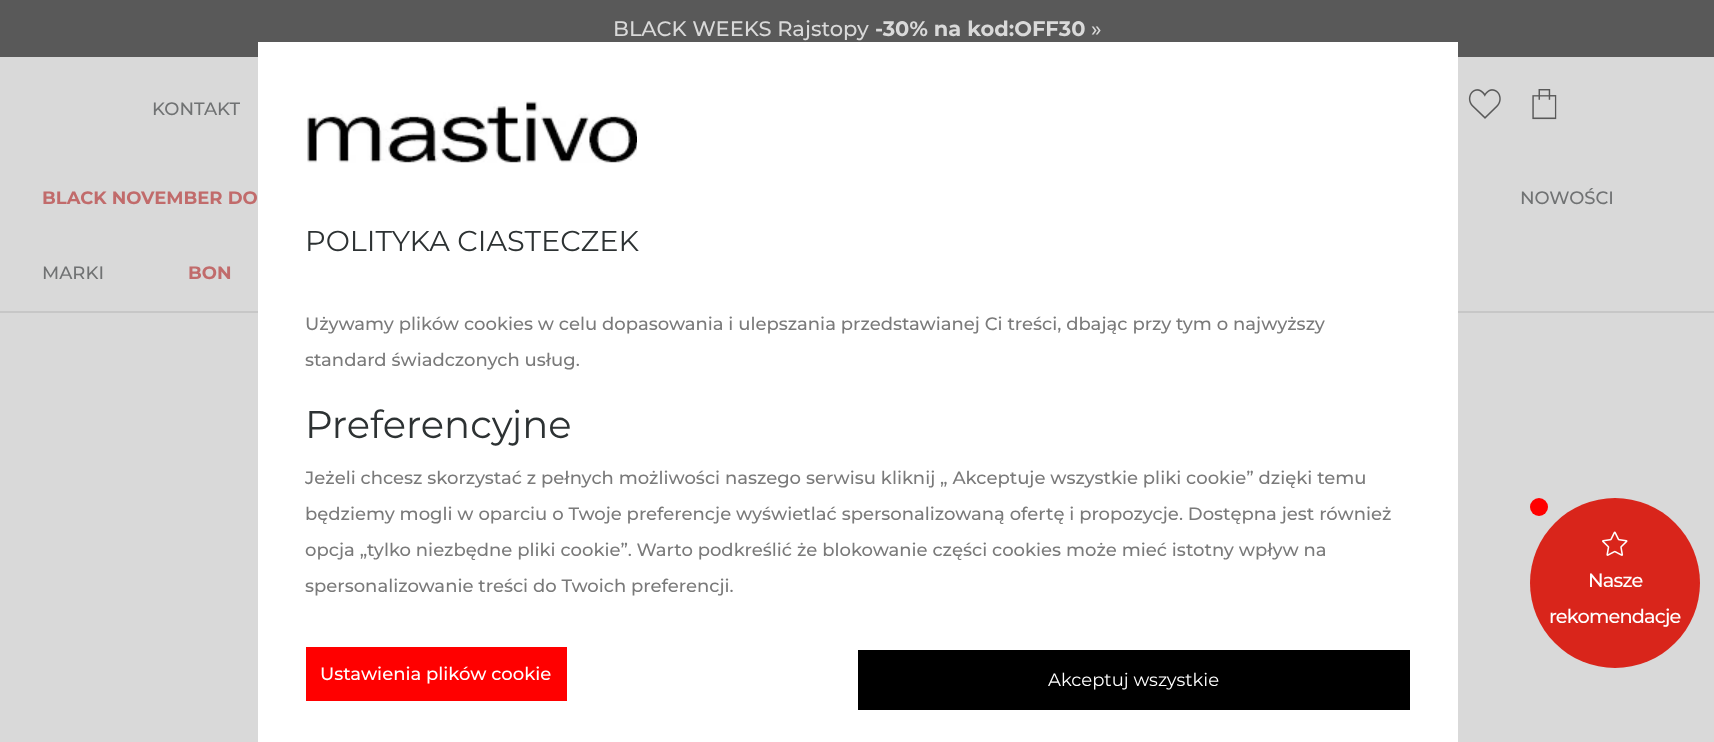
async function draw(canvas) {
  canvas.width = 1714
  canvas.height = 742
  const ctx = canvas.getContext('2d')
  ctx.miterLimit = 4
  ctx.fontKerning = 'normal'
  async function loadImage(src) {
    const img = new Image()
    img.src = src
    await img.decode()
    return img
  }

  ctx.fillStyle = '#d9d9d9'
  ctx.fillRect(0, 0, 1714, 742)
  ctx.fillStyle = '#c7c7c7'
  ctx.fillRect(0, 311, 1714, 2)
  ctx.fillStyle = '#595959'
  ctx.fillRect(0, 0, 1714, 57)
  ctx.font = '500 21px Montserrat'
  ctx.fillStyle = '#d9d9d9'
  ctx.fillText('BLACK WEEKS Rajstopy', 613, 36)
  ctx.font = 'bold 21px Montserrat'
  ctx.fillText('-30% na kod:OFF30', 875, 36)
  ctx.font = '500 21px Montserrat'
  ctx.fillText('»', 1091, 36)
  ctx.font = '500 18px Montserrat'
  ctx.fillStyle = '#707273'
  ctx.fillText('KONTAKT', 152, 115)
  ctx.drawImage(await loadImage('image0.png'), 1468, 89, 33, 30)
  ctx.drawImage(await loadImage('image1.png'), 1532, 89, 25, 31)
  ctx.font = 'bold 18px Montserrat'
  ctx.fillStyle = '#c16b6b'
  ctx.fillText('BLACK NOVEMBER DO', 42, 204)
  ctx.font = '500 18px Montserrat'
  ctx.fillStyle = '#707273'
  ctx.fillText('NOWOŚCI', 1520, 204)
  ctx.fillText('MARKI', 42, 279)
  ctx.font = 'bold 18px Montserrat'
  ctx.fillStyle = '#c16b6b'
  ctx.fillText('BON', 188, 279)
  ctx.fillStyle = '#fff'
  ctx.fillRect(258, 42, 1200, 700)
  ctx.drawImage(await loadImage('image2.png'), 307, 101, 330, 62)
  ctx.font = '28.75px Montserrat'
  ctx.fillStyle = '#2d3233'
  ctx.fillText('POLITYKA CIASTECZEK', 305, 251)
  ctx.font = '500 18px Montserrat'
  ctx.fillStyle = '#7a7a7a'
  ctx.fillText('Używamy plików cookies w celu dopasowania i ulepszania przedstawianej Ci treści, dbając przy tym o najwyższy', 305, 330)
  ctx.fillText('standard świadczonych usług.', 305, 366)
  ctx.font = '38.5px Montserrat'
  ctx.fillStyle = '#2d3233'
  ctx.fillText('Preferencyjne', 305, 438)
  ctx.font = '500 18px Montserrat'
  ctx.fillStyle = '#7a7a7a'
  ctx.fillText('Jeżeli chcesz skorzystać z pełnych możliwości naszego serwisu kliknij „ Akceptuje wszystkie pliki cookie” dzięki temu', 305, 484)
  ctx.fillText('będziemy mogli w oparciu o Twoje preferencje wyświetlać spersonalizowaną ofertę i propozycje. Dostępna jest również', 305, 520)
  ctx.fillText('opcja „tylko niezbędne pliki cookie”. Warto podkreślić że blokowanie części cookies może mieć istotny wpływ na', 305, 556)
  ctx.fillText('spersonalizowanie treści do Twoich preferencji.', 305, 592)
  ctx.fillStyle = '#f00'
  ctx.fillRect(306, 647, 261, 54)
  ctx.fillStyle = '#fff'
  ctx.fillText('Ustawienia plików cookie', 320, 680)
  ctx.fillStyle = '#000'
  ctx.fillRect(858, 650, 552, 60)
  ctx.font = '18px Montserrat'
  ctx.fillStyle = '#fff'
  ctx.fillText('Akceptuj wszystkie', 1048, 686)
  ctx.fillStyle = '#d9251b'
  ctx.beginPath()
  ctx.arc(1615, 583, 85, 0, 2 * Math.PI)
  ctx.fill()
  ctx.fillStyle = '#f00'
  ctx.beginPath()
  ctx.arc(1539, 507, 9, 0, 2 * Math.PI)
  ctx.fill()
  ctx.drawImage(await loadImage('image3.png'), 1602, 531, 26, 25)
  ctx.letterSpacing = '-0.8px'
  ctx.font = '500 19.25px Montserrat'
  ctx.fillStyle = '#fff'
  ctx.fillText('Nasze', 1588, 587)
  ctx.fillText('rekomendacje', 1549, 623)
}

draw(document.querySelector('canvas'))
